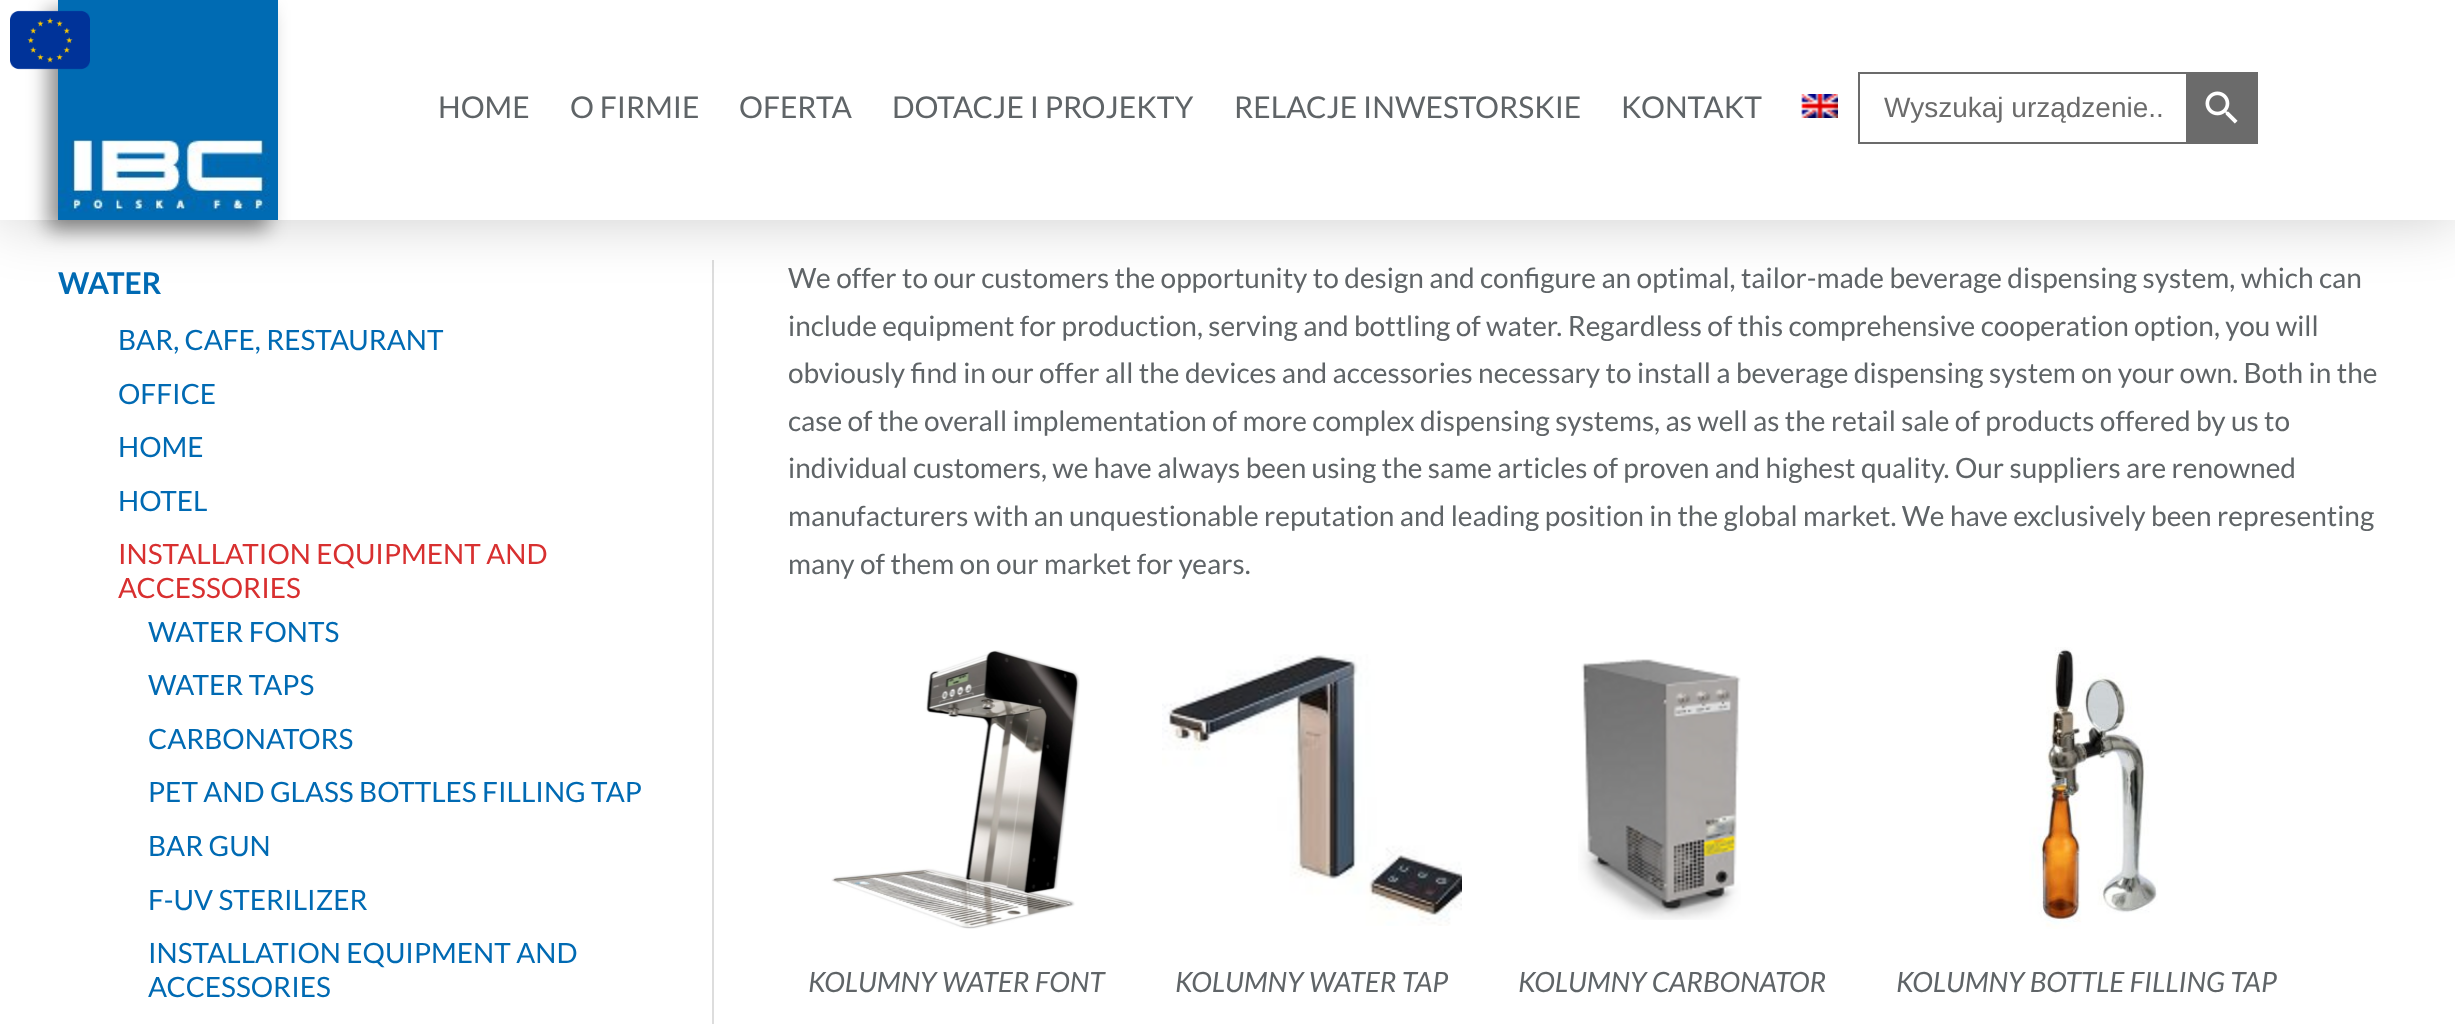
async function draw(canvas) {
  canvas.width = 2455
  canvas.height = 1036
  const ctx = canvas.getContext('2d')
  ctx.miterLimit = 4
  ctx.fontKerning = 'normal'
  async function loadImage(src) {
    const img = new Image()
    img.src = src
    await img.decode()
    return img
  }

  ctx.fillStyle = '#fff'
  ctx.fillRect(0, 0, 2455, 1036)
  ctx.fillStyle = '#ddd'
  ctx.fillRect(712, 260, 2, 764)
  ctx.fillStyle = '#00000033'
  ctx.filter = 'blur(30px)'
  ctx.beginPath()
  ctx.rect(0, 0, 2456, 220)
  ctx.fill()
  ctx.filter = 'none'
  ctx.fillStyle = '#fff'
  ctx.fillRect(0, 0, 2455, 220)
  ctx.fillStyle = '#00000070'
  ctx.filter = 'blur(10px)'
  ctx.beginPath()
  ctx.rect(48, 10, 220, 220)
  ctx.fill()
  ctx.filter = 'none'
  ctx.drawImage(await loadImage('image1.png'), 58, 0, 220, 220)
  ctx.drawImage(await loadImage('image0.png'), 10, 10, 80, 60)
  ctx.font = '30px Lato'
  ctx.fillStyle = '#5f6467'
  ctx.fillText('HOME', 438, 118)
  ctx.fillText('O FIRMIE', 570, 118)
  ctx.fillText('OFERTA', 739, 118)
  ctx.fillText('DOTACJE I PROJEKTY', 892, 118)
  ctx.fillText('RELACJE INWESTORSKIE', 1234, 118)
  ctx.fillText('KONTAKT', 1621, 118)
  ctx.drawImage(await loadImage('image2.png'), 1801, 94, 37, 24)
  ctx.fillStyle = '#6b6b6b'
  ctx.fillRect(1858, 72, 328, 2)
  ctx.fillRect(1858, 142, 328, 2)
  ctx.fillRect(1858, 72, 2, 72)
  ctx.font = '28px Liberation Sans'
  ctx.fillText('Wyszukaj urządzenie..', 1884, 117)
  ctx.fillRect(2186, 72, 72, 72)
  ctx.drawImage(await loadImage('image3.png'), 2205, 91, 33, 33)
  ctx.font = 'bold 30px Lato'
  ctx.fillStyle = '#006ab3'
  ctx.fillText('WATER', 58, 294)
  ctx.font = '28px Lato'
  ctx.fillText('BAR, CAFE, RESTAURANT', 118, 350)
  ctx.fillText('OFFICE', 118, 404)
  ctx.fillText('HOME', 118, 457)
  ctx.fillText('HOTEL', 118, 511)
  ctx.fillStyle = '#d83030'
  ctx.fillText('INSTALLATION EQUIPMENT AND', 118, 564)
  ctx.fillText('ACCESSORIES', 118, 598)
  ctx.fillStyle = '#006ab3'
  ctx.fillText('WATER FONTS', 148, 642)
  ctx.fillText('WATER TAPS', 148, 695)
  ctx.fillText('CARBONATORS', 148, 749)
  ctx.fillText('PET AND GLASS BOTTLES FILLING TAP', 148, 802)
  ctx.fillText('BAR GUN', 148, 856)
  ctx.fillText('F-UV STERILIZER', 148, 910)
  ctx.fillText('INSTALLATION EQUIPMENT AND', 148, 963)
  ctx.fillText('ACCESSORIES', 148, 997)
  ctx.fillStyle = '#5f6467'
  ctx.fillText('We offer to our customers the opportunity to design and configure an optimal, tailor-made beverage dispensing system, which can', 788, 288)
  ctx.fillText('include equipment for production, serving and bottling of water. Regardless of this comprehensive cooperation option, you will', 788, 336)
  ctx.fillText('obviously find in our offer all the devices and accessories necessary to install a beverage dispensing system on your own. Both in the', 788, 383)
  ctx.fillText('case of the overall implementation of more complex dispensing systems, as well as the retail sale of products offered by us to', 788, 431)
  ctx.fillText('individual customers, we have always been using the same articles of proven and highest quality. Our suppliers are renowned', 788, 478)
  ctx.fillText('manufacturers with an unquestionable reputation and leading position in the global market. We have exclusively been representing', 788, 526)
  ctx.fillText('many of them on our market for years.', 788, 574)
  ctx.drawImage(await loadImage('image4.png'), 831, 650, 249, 279)
  ctx.font = 'italic 28px Lato'
  ctx.fillText('KOLUMNY WATER FONT', 808, 992)
  ctx.drawImage(await loadImage('image5.png'), 1162, 654, 300, 272)
  ctx.fillText('KOLUMNY WATER TAP', 1175, 992)
  ctx.drawImage(await loadImage('image6.png'), 1578, 659, 163, 261)
  ctx.fillText('KOLUMNY CARBONATOR', 1518, 992)
  ctx.drawImage(await loadImage('image7.png'), 2029, 647, 129, 282)
  ctx.fillText('KOLUMNY BOTTLE FILLING TAP', 1896, 992)
}

draw(document.querySelector('canvas'))
